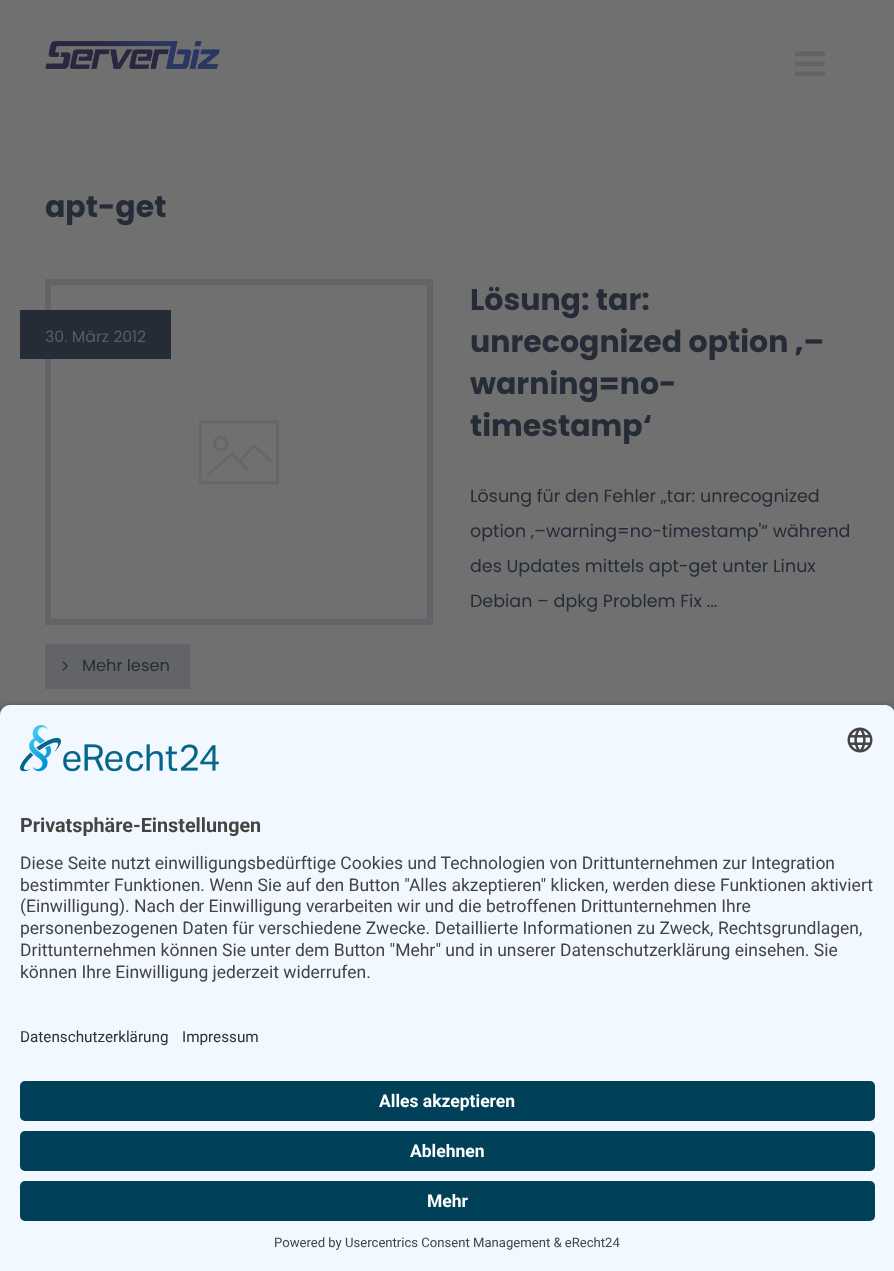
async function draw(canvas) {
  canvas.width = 894
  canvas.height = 1271
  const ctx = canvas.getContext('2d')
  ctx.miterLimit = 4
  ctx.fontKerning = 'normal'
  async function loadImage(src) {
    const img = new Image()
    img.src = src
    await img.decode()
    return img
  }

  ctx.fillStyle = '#707070'
  ctx.fillRect(0, 0, 894, 1271)
  ctx.fillStyle = '#6d6d6d'
  ctx.fillRect(0, 110, 894, 1)
  ctx.drawImage(await loadImage('image0.png'), 45, 41, 175, 28)
  ctx.drawImage(await loadImage('image1.png'), 795, 51, 30, 26)
  ctx.fillStyle = '#6b6b6b'
  ctx.fillRect(45, 253, 805, 1)
  ctx.font = 'bold 30px Poppins'
  ctx.fillStyle = '#252c37'
  ctx.fillText('apt-get', 45, 217)
  ctx.drawImage(await loadImage('image2.png'), 199, 420, 80, 65)
  ctx.strokeStyle = '#626467'
  ctx.lineWidth = 6
  ctx.strokeRect(48, 282, 382, 340)
  ctx.fillText('Lösung: tar:', 470, 310)
  ctx.fillText('unrecognized option ‚–', 470, 352)
  ctx.fillText('warning=no-', 470, 394)
  ctx.fillText('timestamp‘', 470, 436)
  ctx.fillRect(20, 310, 151, 49)
  ctx.font = '15.75px Poppins'
  ctx.fillStyle = '#5a5c5f'
  ctx.fillText('30. März 2012', 45, 342)
  ctx.font = '17.5px Poppins'
  ctx.fillStyle = '#252c37'
  ctx.fillText('Lösung für den Fehler „tar: unrecognized', 470, 502)
  ctx.fillText('option ‚–warning=no-timestamp\'“ während', 470, 537)
  ctx.fillText('des Updates mittels apt-get unter Linux', 470, 572)
  ctx.fillText('Debian – dpkg Problem Fix ...', 470, 607)
  ctx.fillStyle = '#626467'
  ctx.fillRect(45, 644, 145, 45)
  ctx.drawImage(await loadImage('image3.png'), 62, 661, 6, 10)
  ctx.font = '16.25px Poppins'
  ctx.fillStyle = '#252c37'
  ctx.fillText('Mehr lesen', 82, 671)
  ctx.fillStyle = '#000000cc'
  ctx.filter = 'blur(4.5px)'
  ctx.beginPath()
  ctx.roundRect(0, 709, 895, 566, 10)
  ctx.fill()
  ctx.filter = 'none'
  ctx.fillStyle = '#f1f8ff'
  ctx.beginPath()
  ctx.moveTo(10, 705)
  ctx.lineTo(885, 705)
  ctx.bezierCurveTo(890.5, 705, 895, 709.5, 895, 715)
  ctx.lineTo(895, 1009)
  ctx.lineTo(0, 1009)
  ctx.lineTo(0, 715)
  ctx.bezierCurveTo(0, 709.5, 4.5, 705, 10, 705)
  ctx.closePath()
  ctx.fill()
  ctx.drawImage(await loadImage('image4.png'), 20, 725, 199, 47)
  ctx.drawImage(await loadImage('image5.png'), 847, 727, 26, 26)
  ctx.font = 'bold 19.75px Roboto'
  ctx.fillStyle = '#444'
  ctx.fillText('Privatsphäre-Einstellungen', 20, 832)
  ctx.font = '17.5px Roboto'
  ctx.fillText('Diese Seite nutzt einwilligungsbedürftige Cookies und Technologien von Drittunternehmen zur Integration', 20, 869)
  ctx.fillText('bestimmter Funktionen. Wenn Sie auf den Button "Alles akzeptieren" klicken, werden diese Funktionen aktiviert', 20, 891)
  ctx.fillText('(Einwilligung). Nach der Einwilligung verarbeiten wir und die betroffenen Drittunternehmen Ihre', 20, 912)
  ctx.fillText('personenbezogenen Daten für verschiedene Zwecke. Detaillierte Informationen zu Zweck, Rechtsgrundlagen,', 20, 934)
  ctx.fillText('Drittunternehmen können Sie unter dem Button "Mehr" und in unserer Datenschutzerklärung einsehen. Sie', 20, 956)
  ctx.fillText('können Ihre Einwilligung jederzeit widerrufen.', 20, 978)
  ctx.fillStyle = '#f1f8ff'
  ctx.fillRect(0, 1009, 894, 262)
  ctx.font = '15.25px Roboto'
  ctx.fillStyle = '#303030'
  ctx.fillText('Datenschutzerklärung', 20, 1042)
  ctx.fillText('Impressum', 182, 1042)
  ctx.fillStyle = '#004059'
  ctx.beginPath()
  ctx.roundRect(20, 1081, 855, 40, 5)
  ctx.fill()
  ctx.font = 'bold 17.5px Roboto'
  ctx.fillStyle = '#fff'
  ctx.fillText('Alles akzeptieren', 379, 1107)
  ctx.fillStyle = '#004059'
  ctx.beginPath()
  ctx.roundRect(20, 1131, 855, 40, 5)
  ctx.fill()
  ctx.fillStyle = '#fff'
  ctx.fillText('Ablehnen', 410, 1157)
  ctx.fillStyle = '#004059'
  ctx.beginPath()
  ctx.roundRect(20, 1181, 855, 40, 5)
  ctx.fill()
  ctx.fillStyle = '#fff'
  ctx.fillText('Mehr', 427, 1207)
  ctx.font = '13.1px Roboto'
  ctx.fillStyle = '#444'
  ctx.fillText('Powered by Usercentrics Consent Management & eRecht24', 274, 1247)
}

draw(document.querySelector('canvas'))
